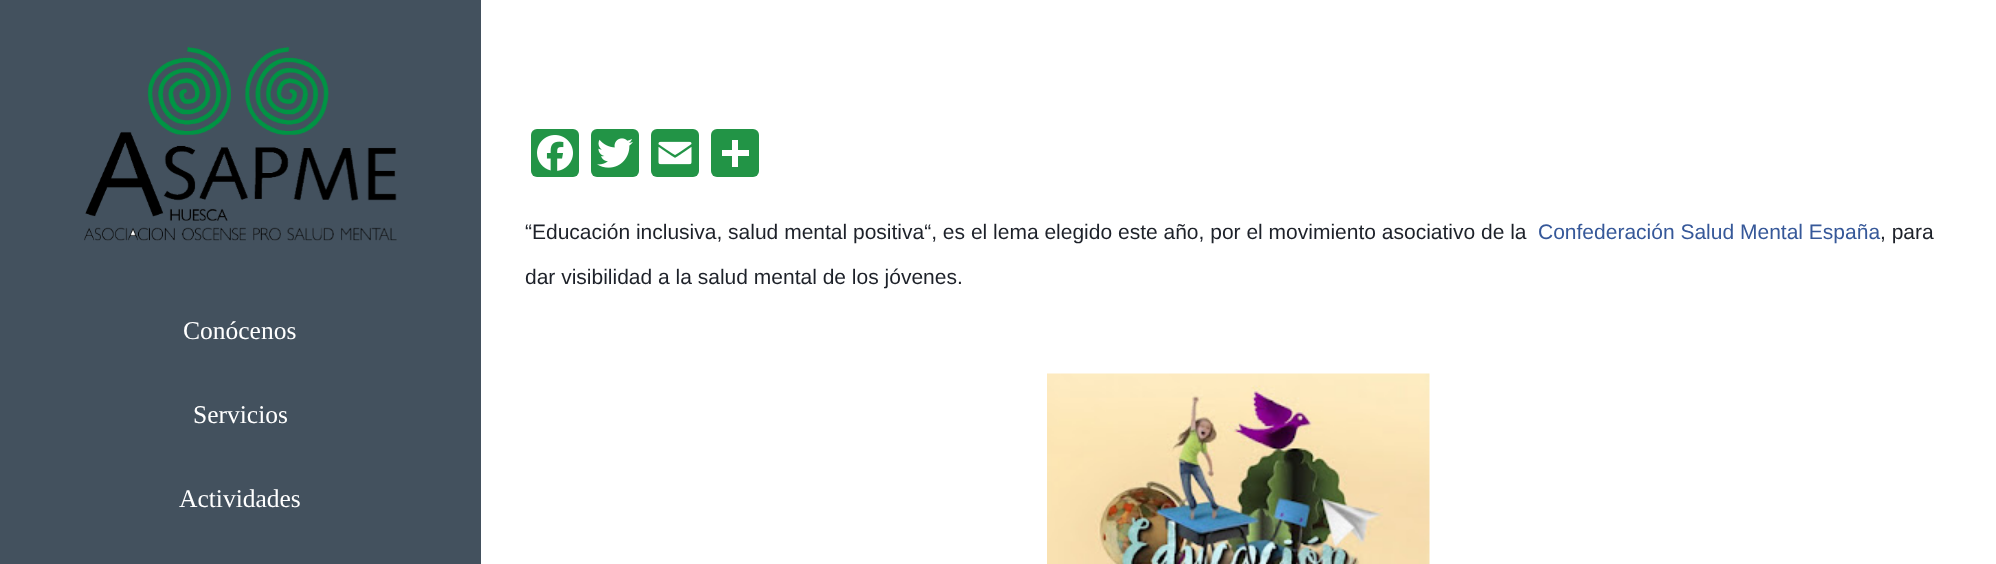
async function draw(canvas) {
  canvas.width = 1996
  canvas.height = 564
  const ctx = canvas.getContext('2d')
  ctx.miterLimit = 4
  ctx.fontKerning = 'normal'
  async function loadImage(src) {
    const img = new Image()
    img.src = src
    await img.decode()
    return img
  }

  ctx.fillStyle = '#fff'
  ctx.fillRect(0, 0, 1996, 564)
  ctx.fillStyle = '#229446'
  ctx.beginPath()
  ctx.roundRect(531, 129, 48, 48, 6)
  ctx.fill()
  ctx.drawImage(await loadImage('image0.png'), 537, 135, 36, 36)
  ctx.beginPath()
  ctx.roundRect(591, 129, 48, 48, 6)
  ctx.fill()
  ctx.drawImage(await loadImage('image1.png'), 597, 138, 36, 30)
  ctx.beginPath()
  ctx.roundRect(651, 129, 48, 48, 6)
  ctx.fill()
  ctx.drawImage(await loadImage('image2.png'), 658, 141, 34, 24)
  ctx.beginPath()
  ctx.roundRect(711, 129, 48, 48, 6)
  ctx.fill()
  ctx.fillStyle = '#fff'
  ctx.fillRect(732, 140, 6, 27)
  ctx.fillRect(722, 150, 27, 6)
  ctx.font = '21px Liberation Sans'
  ctx.fillStyle = '#1d2129'
  ctx.fillText('“Educación inclusiva, salud mental positiva“, es el lema elegido este año, por el movimiento asociativo de la', 525, 239)
  ctx.fillStyle = '#365899'
  ctx.fillText('Confederación Salud Mental España', 1538, 239)
  ctx.fillStyle = '#1d2129'
  ctx.fillText(', para', 1880, 239)
  ctx.fillText('dar visibilidad a la salud mental de los jóvenes.', 525, 284)
  ctx.drawImage(await loadImage('image3.png'), 1047, 373, 383, 191)
  ctx.fillStyle = '#43515e'
  ctx.fillRect(0, 0, 481, 564)
  ctx.drawImage(await loadImage('image4.png'), 84, 47, 313, 194)
  ctx.font = '25.5px Liberation Serif'
  ctx.fillStyle = '#fff'
  ctx.fillText('Conócenos', 183, 339)
  ctx.fillText('Servicios', 193, 423)
  ctx.fillText('Actividades', 179, 507)
}

draw(document.querySelector('canvas'))
